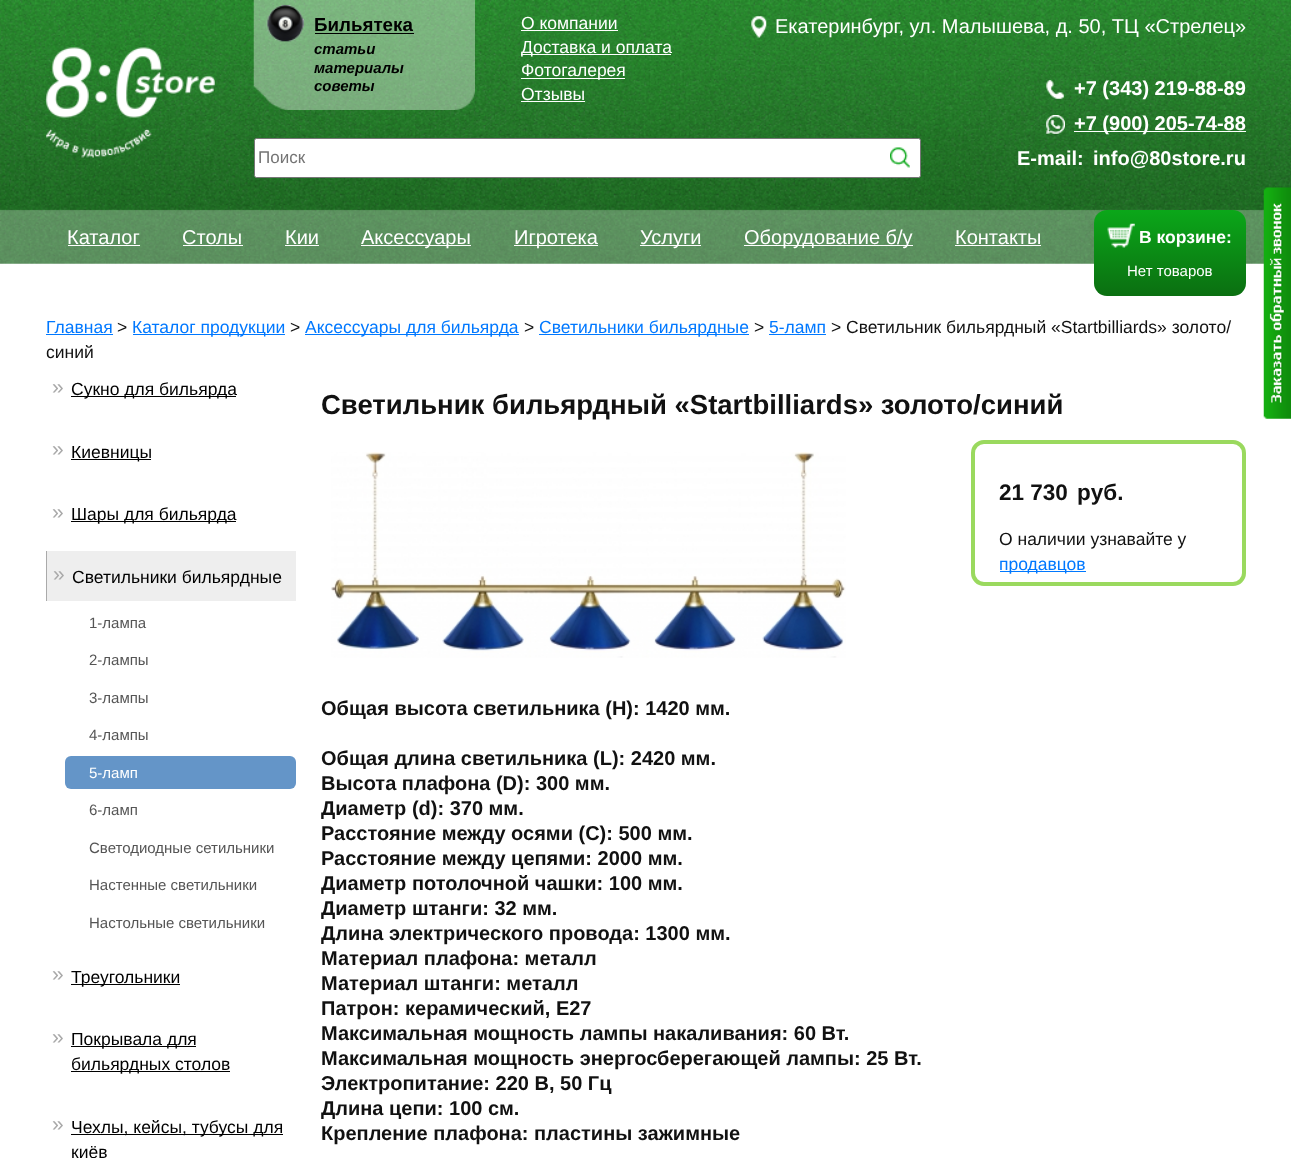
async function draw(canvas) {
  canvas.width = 1291
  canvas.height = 1158
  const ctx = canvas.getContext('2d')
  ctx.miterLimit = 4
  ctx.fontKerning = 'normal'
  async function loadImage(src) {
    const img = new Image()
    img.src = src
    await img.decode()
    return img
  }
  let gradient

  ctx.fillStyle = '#fff'
  ctx.fillRect(0, 0, 1291, 1158)
  ctx.drawImage(await loadImage('image0.png'), 0, 0, 1291, 264)
  ctx.drawImage(await loadImage('image1.png'), 46, 47, 169, 111)
  ctx.beginPath()
  ctx.roundRect(254.5, 138.5, 666, 39, 2)
  ctx.fill()
  ctx.strokeStyle = '#767676'
  ctx.stroke()
  ctx.font = '17px Liberation Sans'
  ctx.fillStyle = '#757575'
  ctx.fillText('Поиск', 258, 163)
  ctx.drawImage(await loadImage('image2.png'), 890, 147, 20, 21)
  ctx.drawImage(await loadImage('image3.png'), 253, 0, 222, 110)
  ctx.font = 'bold 18.75px Liberation Sans'
  ctx.fillStyle = '#000'
  ctx.fillText('Бильятека', 314, 31)
  ctx.fillRect(315, 33, 99, 1)
  ctx.font = 'italic bold 15px Liberation Sans'
  ctx.fillText('статьи', 314, 54)
  ctx.fillText('материалы', 314, 73)
  ctx.fillText('советы', 314, 91)
  ctx.font = '17.5px Liberation Sans'
  ctx.fillStyle = '#fff'
  ctx.fillText('О компании', 521, 29)
  ctx.fillRect(521, 30, 97, 1)
  ctx.fillRect(521, 54, 150, 1)
  ctx.fillText('Доставка и оплата', 521, 53)
  ctx.fillRect(521, 78, 104, 1)
  ctx.fillText('Фотогалерея', 521, 76)
  ctx.fillText('Отзывы', 521, 100)
  ctx.fillRect(521, 101, 64, 1)
  ctx.drawImage(await loadImage('image4.png'), 751, 16, 16, 22)
  ctx.font = '20px Liberation Sans'
  ctx.fillText('Екатеринбург, ул. Малышева, д. 50, ТЦ «Стрелец»', 775, 33)
  ctx.drawImage(await loadImage('image5.png'), 1046, 80, 18, 19)
  ctx.font = 'bold 20px Liberation Sans'
  ctx.fillText('+7 (343) 219-88-89', 1074, 95)
  ctx.drawImage(await loadImage('image6.png'), 1046, 115, 19, 19)
  ctx.fillRect(1074, 131, 172, 1)
  ctx.fillText('+7 (900) 205-74-88', 1074, 130)
  ctx.fillText('E-mail:', 1017, 165)
  ctx.fillText('info@80store.ru', 1093, 165)
  ctx.font = '20px Liberation Sans'
  ctx.fillText('Каталог', 67, 244)
  ctx.fillRect(68, 245, 72, 1)
  ctx.fillText('Столы', 182, 244)
  ctx.fillRect(183, 245, 60, 1)
  ctx.fillText('Кии', 285, 244)
  ctx.fillRect(285, 245, 34, 1)
  ctx.fillRect(361, 245, 110, 1)
  ctx.fillText('Аксессуары', 361, 244)
  ctx.fillRect(514, 245, 84, 1)
  ctx.fillText('Игротека', 514, 244)
  ctx.fillRect(640, 245, 61, 1)
  ctx.fillText('Услуги', 640, 244)
  ctx.fillRect(744, 245, 169, 1)
  ctx.fillText('Оборудование б/у', 744, 244)
  ctx.fillText('Контакты', 955, 244)
  ctx.fillRect(955, 245, 86, 1)
  gradient = ctx.createLinearGradient(1170, 296, 1170, 210)
  gradient.addColorStop(0, '#0b6f11')
  gradient.addColorStop(1, '#0ba719')
  ctx.fillStyle = gradient
  ctx.beginPath()
  ctx.roundRect(1094, 210, 152, 86, 13)
  ctx.fill()
  ctx.drawImage(await loadImage('image7.png'), 1107, 223, 28, 25)
  ctx.font = 'bold 17.5px Liberation Sans'
  ctx.fillStyle = '#fff'
  ctx.fillText('В корзине:', 1139, 243)
  ctx.font = '15px Liberation Sans'
  ctx.fillText('Нет товаров', 1127, 276)
  ctx.font = '17.5px Liberation Sans'
  ctx.fillStyle = '#0078ff'
  ctx.fillText('Главная', 46, 333)
  ctx.fillRect(46, 334, 67, 1)
  ctx.fillStyle = '#111'
  ctx.fillText('>', 117, 333)
  ctx.fillStyle = '#0078ff'
  ctx.fillRect(133, 334, 152, 1)
  ctx.fillText('Каталог продукции', 132, 333)
  ctx.fillStyle = '#111'
  ctx.fillText('>', 290, 333)
  ctx.fillStyle = '#0078ff'
  ctx.fillRect(305, 334, 214, 1)
  ctx.fillText('Аксессуары для бильярда', 305, 333)
  ctx.fillStyle = '#111'
  ctx.fillText('>', 524, 333)
  ctx.fillStyle = '#0078ff'
  ctx.fillRect(539, 334, 210, 1)
  ctx.fillText('Светильники бильярдные', 539, 333)
  ctx.fillStyle = '#111'
  ctx.fillText('>', 754, 333)
  ctx.fillStyle = '#0078ff'
  ctx.fillText('5-ламп', 769, 333)
  ctx.fillRect(769, 334, 57, 1)
  ctx.fillStyle = '#111'
  ctx.fillText('> Cветильник бильярдный «Startbilliards» золото/', 831, 333)
  ctx.fillText('синий', 46, 358)
  ctx.font = '21px Liberation Sans'
  ctx.fillStyle = '#a9a9a9'
  ctx.fillText('»', 52, 394)
  ctx.fillStyle = '#000'
  ctx.fillRect(71, 396, 165, 1)
  ctx.font = '17.5px Liberation Sans'
  ctx.fillText('Cукно для бильярда', 71, 395)
  ctx.font = '21px Liberation Sans'
  ctx.fillStyle = '#a9a9a9'
  ctx.fillText('»', 52, 456)
  ctx.fillStyle = '#000'
  ctx.fillRect(71, 459, 80, 1)
  ctx.font = '17.5px Liberation Sans'
  ctx.fillText('Киевницы', 71, 458)
  ctx.font = '21px Liberation Sans'
  ctx.fillStyle = '#a9a9a9'
  ctx.fillText('»', 52, 519)
  ctx.fillStyle = '#000'
  ctx.fillRect(71, 521, 165, 1)
  ctx.font = '17.5px Liberation Sans'
  ctx.fillText('Шары для бильярда', 71, 520)
  ctx.fillStyle = '#eee'
  ctx.fillRect(47, 551, 249, 50)
  ctx.fillStyle = '#aaa'
  ctx.fillRect(46, 551, 1, 50)
  ctx.font = '21px Liberation Sans'
  ctx.fillStyle = '#a9a9a9'
  ctx.fillText('»', 53, 581)
  ctx.font = '17.5px Liberation Sans'
  ctx.fillStyle = '#000'
  ctx.fillText('Светильники бильярдные', 72, 583)
  ctx.font = '15px Liberation Sans'
  ctx.fillStyle = '#555'
  ctx.fillText('1-лампа', 89, 628)
  ctx.fillText('2-лампы', 89, 665)
  ctx.fillText('3-лампы', 89, 703)
  ctx.fillText('4-лампы', 89, 740)
  ctx.fillStyle = '#6495c8'
  ctx.beginPath()
  ctx.roundRect(65, 756, 231, 33, 6)
  ctx.fill()
  ctx.fillStyle = '#fff'
  ctx.fillText('5-ламп', 89, 778)
  ctx.fillStyle = '#555'
  ctx.fillText('6-ламп', 89, 815)
  ctx.fillText('Светодиодные сетильники', 89, 853)
  ctx.fillText('Настенные светильники', 89, 890)
  ctx.fillText('Настольные светильники', 89, 928)
  ctx.font = '21px Liberation Sans'
  ctx.fillStyle = '#a9a9a9'
  ctx.fillText('»', 52, 981)
  ctx.fillStyle = '#000'
  ctx.fillRect(71, 984, 109, 1)
  ctx.font = '17.5px Liberation Sans'
  ctx.fillText('Треугольники', 71, 983)
  ctx.font = '21px Liberation Sans'
  ctx.fillStyle = '#a9a9a9'
  ctx.fillText('»', 52, 1044)
  ctx.fillStyle = '#000'
  ctx.fillRect(71, 1046, 125, 1)
  ctx.font = '17.5px Liberation Sans'
  ctx.fillText('Покрывала для', 71, 1045)
  ctx.fillRect(71, 1071, 159, 1)
  ctx.fillText('бильярдных столов', 71, 1070)
  ctx.font = '21px Liberation Sans'
  ctx.fillStyle = '#a9a9a9'
  ctx.fillText('»', 52, 1131)
  ctx.fillStyle = '#000'
  ctx.fillRect(71, 1134, 212, 1)
  ctx.font = '17.5px Liberation Sans'
  ctx.fillText('Чехлы, кейсы, тубусы для', 71, 1133)
  ctx.fillText('киёв', 71, 1158)
  ctx.font = 'bold 27.5px Liberation Sans'
  ctx.fillStyle = '#111'
  ctx.fillText('Cветильник бильярдный «Startbilliards» золото/синий', 321, 414)
  ctx.drawImage(await loadImage('image8.png'), 331, 452, 515, 206)
  ctx.beginPath()
  ctx.roundRect(973, 442, 271, 142, 11)
  ctx.strokeStyle = '#9ad95e'
  ctx.lineWidth = 4
  ctx.stroke()
  ctx.font = 'bold 22.5px Liberation Sans'
  ctx.fillText('21 730', 999, 500)
  ctx.fillText('pуб.', 1077, 500)
  ctx.font = '17.5px Liberation Sans'
  ctx.fillText('О наличии узнавайте у', 999, 545)
  ctx.fillStyle = '#0078ff'
  ctx.fillRect(1000, 571, 86, 1)
  ctx.fillText('продавцов', 999, 570)
  ctx.font = 'bold 20px Liberation Sans'
  ctx.fillStyle = '#111'
  ctx.fillText('Общая высота светильника (Н): 1420 мм.', 321, 715)
  ctx.fillText('Общая длина светильника (L): 2420 мм.', 321, 765)
  ctx.fillText('Высота плафона (D): 300 мм.', 321, 790)
  ctx.save()
  ctx.beginPath()
  ctx.rect(321, 364, 925, 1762)
  ctx.clip()
  ctx.fillText('Диаметр (d): 370 мм.', 321, 815)
  ctx.restore()
  ctx.fillText('Расстояние между осями (C): 500 мм.', 321, 840)
  ctx.fillText('Расстояние между цепями: 2000 мм.', 321, 865)
  ctx.save()
  ctx.beginPath()
  ctx.rect(321, 364, 925, 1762)
  ctx.clip()
  ctx.fillText('Диаметр потолочной чашки: 100 мм.', 321, 890)
  ctx.fillText('Диаметр штанги: 32 мм.', 321, 915)
  ctx.fillText('Длина электрического провода: 1300 мм.', 321, 940)
  ctx.restore()
  ctx.fillText('Материал плафона: металл', 321, 965)
  ctx.fillText('Материал штанги: металл', 321, 990)
  ctx.fillText('Патрон: керамический, E27', 321, 1015)
  ctx.fillText('Максимальная мощность лампы накаливания: 60 Вт.', 321, 1040)
  ctx.fillText('Максимальная мощность энергосберегающей лампы: 25 Вт.', 321, 1065)
  ctx.fillText('Электропитание: 220 В, 50 Гц', 321, 1090)
  ctx.save()
  ctx.beginPath()
  ctx.rect(321, 364, 925, 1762)
  ctx.clip()
  ctx.fillText('Длина цепи: 100 см.', 321, 1115)
  ctx.restore()
  ctx.fillText('Крепление плафона: пластины зажимные', 321, 1140)
  ctx.drawImage(await loadImage('image9.png'), 1263, 187, 28, 232)
}

draw(document.querySelector('canvas'))
